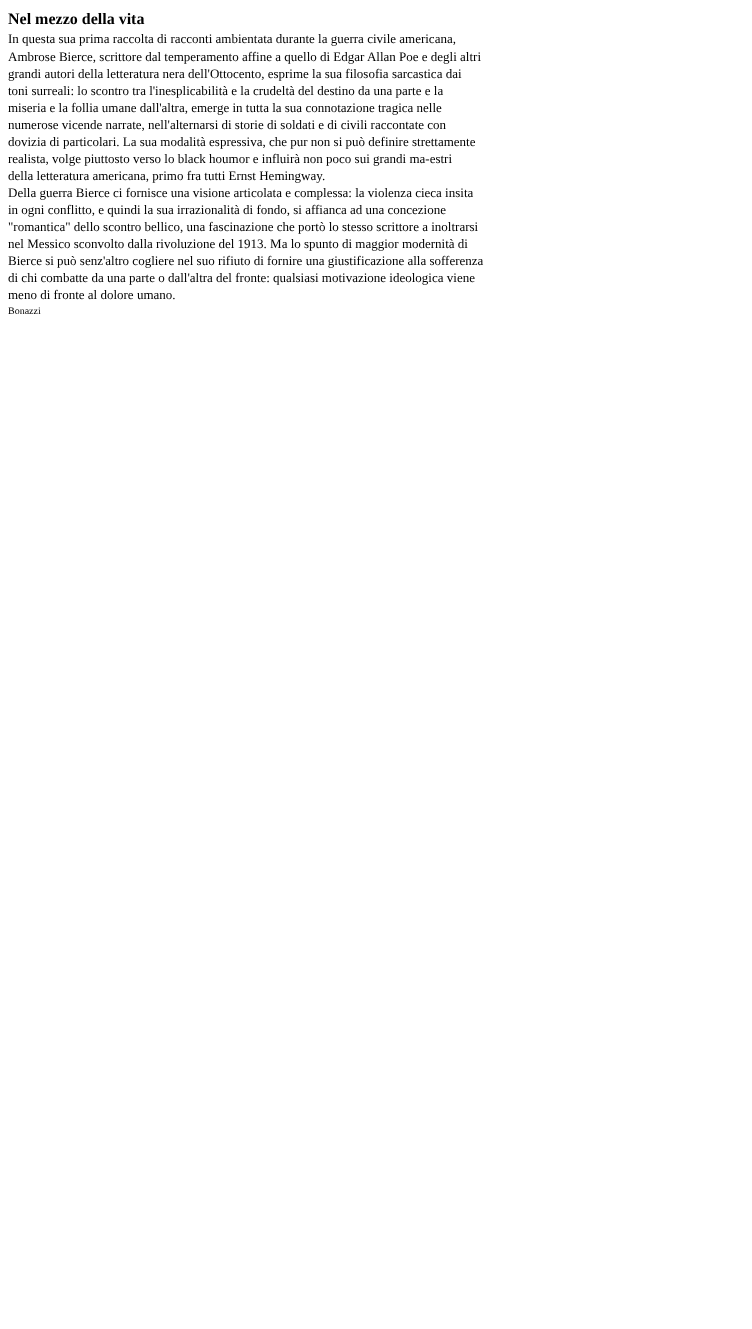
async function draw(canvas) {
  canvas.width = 752
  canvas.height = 1329
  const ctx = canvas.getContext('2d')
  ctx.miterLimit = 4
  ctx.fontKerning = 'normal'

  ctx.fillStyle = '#fff'
  ctx.fillRect(0, 0, 752, 1329)
  ctx.font = 'bold 16px Liberation Serif'
  ctx.fillStyle = '#000'
  ctx.fillText('Nel mezzo della vita', 8, 24)
  ctx.font = '13px Liberation Serif'
  ctx.fillText('In questa sua prima raccolta di racconti ambientata durante la guerra civile americana,', 8, 43)
  ctx.fillText('Ambrose Bierce, scrittore dal temperamento affine a quello di Edgar Allan Poe e degli altri', 8, 61)
  ctx.fillText('grandi autori della letteratura nera dell\'Ottocento, esprime la sua filosofia sarcastica dai', 8, 78)
  ctx.fillText('toni surreali: lo scontro tra l\'inesplicabilità e la crudeltà del destino da una parte e la', 8, 95)
  ctx.fillText('miseria e la follia umane dall\'altra, emerge in tutta la sua connotazione tragica nelle', 8, 112)
  ctx.fillText('numerose vicende narrate, nell\'alternarsi di storie di soldati e di civili raccontate con', 8, 129)
  ctx.fillText('dovizia di particolari. La sua modalità espressiva, che pur non si può definire strettamente', 8, 146)
  ctx.fillText('realista, volge piuttosto verso lo black houmor e influirà non poco sui grandi ma-estri', 8, 163)
  ctx.fillText('della letteratura americana, primo fra tutti Ernst Hemingway.', 8, 180)
  ctx.fillText('Della guerra Bierce ci fornisce una visione articolata e complessa: la violenza cieca insita', 8, 197)
  ctx.fillText('in ogni conflitto, e quindi la sua irrazionalità di fondo, si affianca ad una concezione', 8, 214)
  ctx.fillText('"romantica" dello scontro bellico, una fascinazione che portò lo stesso scrittore a inoltrarsi', 8, 231)
  ctx.fillText('nel Messico sconvolto dalla rivoluzione del 1913. Ma lo spunto di maggior modernità di', 8, 248)
  ctx.fillText('Bierce si può senz\'altro cogliere nel suo rifiuto di fornire una giustificazione alla sofferenza', 8, 265)
  ctx.fillText('di chi combatte da una parte o dall\'altra del fronte: qualsiasi motivazione ideologica viene', 8, 282)
  ctx.fillText('meno di fronte al dolore umano.', 8, 299)
  ctx.font = '10px Liberation Serif'
  ctx.fillText('Bonazzi', 8, 314)
}

draw(document.querySelector('canvas'))
